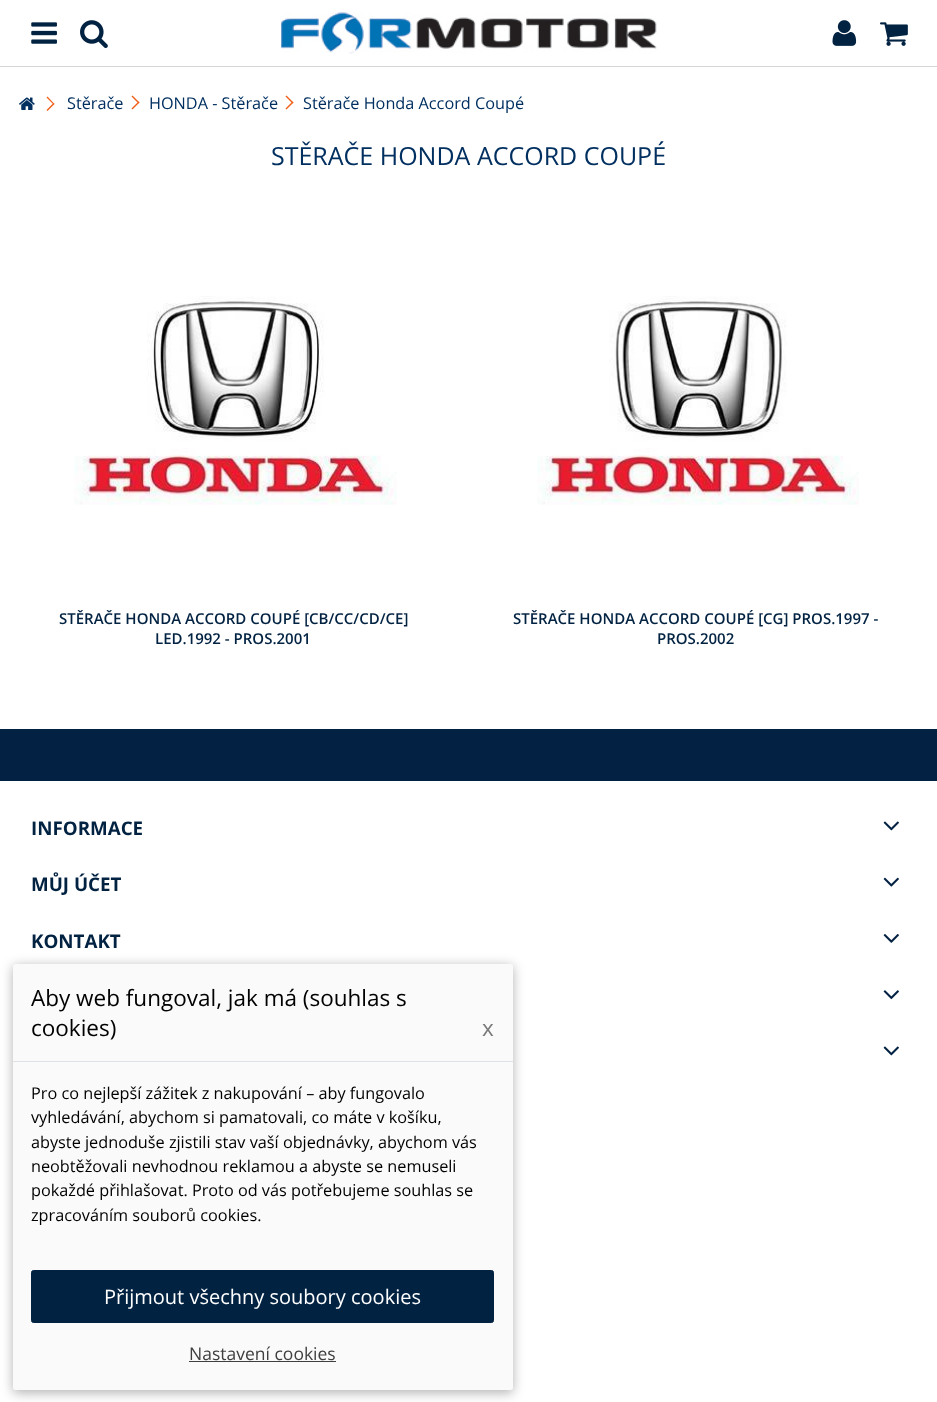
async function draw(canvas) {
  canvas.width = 937
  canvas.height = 1402
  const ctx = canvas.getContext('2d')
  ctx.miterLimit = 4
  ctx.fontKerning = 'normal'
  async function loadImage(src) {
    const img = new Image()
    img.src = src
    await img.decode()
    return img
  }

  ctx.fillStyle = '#fff'
  ctx.fillRect(0, 0, 937, 1402)
  ctx.fillStyle = '#d6d4d4'
  ctx.fillRect(0, 66, 937, 1)
  ctx.drawImage(await loadImage('image0.png'), 31, 22, 26, 22)
  ctx.drawImage(await loadImage('image1.png'), 80, 20, 28, 28)
  ctx.drawImage(await loadImage('image2.png'), 281, 12, 376, 42)
  ctx.drawImage(await loadImage('image3.png'), 832, 20, 25, 26)
  ctx.drawImage(await loadImage('image4.png'), 880, 22, 28, 24)
  ctx.drawImage(await loadImage('image5.png'), 19, 97, 16, 13)
  ctx.fillStyle = '#ef5f18'
  ctx.beginPath()
  ctx.moveTo(47.5, 96.5)
  ctx.lineTo(54.5, 104)
  ctx.lineTo(53.5, 104.5)
  ctx.lineTo(46.5, 97.5)
  ctx.closePath()
  ctx.fill()
  ctx.beginPath()
  ctx.moveTo(53.5, 103)
  ctx.lineTo(54.5, 104)
  ctx.lineTo(47.5, 111)
  ctx.lineTo(46.5, 110)
  ctx.closePath()
  ctx.fill()
  ctx.font = '16.25px Open Sans'
  ctx.fillStyle = '#012f60'
  ctx.fillText('Stěrače', 67, 109)
  ctx.fillStyle = '#ef5f18'
  ctx.beginPath()
  ctx.moveTo(132.5, 95.5)
  ctx.lineTo(139.5, 102.5)
  ctx.lineTo(138.5, 103.5)
  ctx.lineTo(131.5, 96.5)
  ctx.closePath()
  ctx.fill()
  ctx.beginPath()
  ctx.moveTo(138.5, 101.5)
  ctx.lineTo(139.5, 102.5)
  ctx.lineTo(132.5, 109.5)
  ctx.lineTo(131.5, 108.5)
  ctx.closePath()
  ctx.fill()
  ctx.fillStyle = '#012f60'
  ctx.fillText('HONDA - Stěrače', 149, 109)
  ctx.fillStyle = '#ef5f18'
  ctx.beginPath()
  ctx.moveTo(286.5, 95.5)
  ctx.lineTo(293.5, 102.5)
  ctx.lineTo(292.5, 103.5)
  ctx.lineTo(285.5, 96.5)
  ctx.closePath()
  ctx.fill()
  ctx.beginPath()
  ctx.moveTo(292.5, 101.5)
  ctx.lineTo(293.5, 102.5)
  ctx.lineTo(286.5, 109.5)
  ctx.lineTo(285.5, 108.5)
  ctx.closePath()
  ctx.fill()
  ctx.fillStyle = '#012f60'
  ctx.fillText('Stěrače Honda Accord Coupé', 303, 109)
  ctx.font = '25px Open Sans'
  ctx.fillText('STĚRAČE HONDA ACCORD COUPÉ', 271, 165)
  ctx.drawImage(await loadImage('image6.png'), 74, 296, 323, 209)
  ctx.font = '600 15px Open Sans'
  ctx.fillStyle = '#022242'
  ctx.fillText('STĚRAČE HONDA ACCORD COUPÉ [CB/CC/CD/CE]', 59, 624)
  ctx.fillText('LED.1992 - PROS.2001', 155, 644)
  ctx.drawImage(await loadImage('image7.png'), 537, 296, 322, 209)
  ctx.fillText('STĚRAČE HONDA ACCORD COUPÉ [CG] PROS.1997 -', 513, 624)
  ctx.fillText('PROS.2002', 657, 644)
  ctx.fillStyle = '#032142'
  ctx.fillRect(0, 729, 937, 52)
  ctx.font = 'bold 18.75px Open Sans'
  ctx.fillStyle = '#022242'
  ctx.fillText('INFORMACE', 31, 835)
  ctx.drawImage(await loadImage('image8.png'), 883, 821, 16, 10)
  ctx.fillText('MŮJ ÚČET', 31, 891)
  ctx.drawImage(await loadImage('image9.png'), 883, 877, 16, 10)
  ctx.fillText('KONTAKT', 31, 948)
  ctx.drawImage(await loadImage('image10.png'), 883, 934, 16, 9)
  ctx.drawImage(await loadImage('image11.png'), 883, 990, 16, 10)
  ctx.drawImage(await loadImage('image8.png'), 883, 1046, 16, 10)
  ctx.fillStyle = '#0000004d'
  ctx.filter = 'blur(6px)'
  ctx.beginPath()
  ctx.roundRect(13, 966, 500, 427, 2.5)
  ctx.fill()
  ctx.filter = 'none'
  ctx.fillStyle = '#fafafa'
  ctx.beginPath()
  ctx.roundRect(13, 964, 500, 426, 2.5)
  ctx.fill()
  ctx.fillStyle = '#dee2e6'
  ctx.fillRect(13, 1061, 500, 1)
  ctx.font = '22.5px Open Sans'
  ctx.fillStyle = '#000'
  ctx.fillText('Aby web fungoval, jak má (souhlas s', 31, 1006)
  ctx.fillText('cookies)', 31, 1036)
  ctx.fillStyle = '#7a7a7a'
  ctx.fillText('x', 482, 1036)
  ctx.font = '16.25px Open Sans'
  ctx.fillStyle = '#000'
  ctx.fillText('Pro co nejlepší zážitek z nakupování – aby fungovalo', 31, 1099)
  ctx.fillText('vyhledávání, abychom si pamatovali, co máte v košíku,', 31, 1123)
  ctx.fillText('abyste jednoduše zjistili stav vaší objednávky, abychom vás', 31, 1148)
  ctx.fillText('neobtěžovali nevhodnou reklamou a abyste se nemuseli', 31, 1172)
  ctx.fillText('pokaždé přihlašovat. Proto od vás potřebujeme souhlas se', 31, 1196)
  ctx.fillText('zpracováním souborů cookies.', 31, 1221)
  ctx.fillStyle = '#022242'
  ctx.beginPath()
  ctx.roundRect(31.5, 1270.5, 462, 52, 2)
  ctx.fill()
  ctx.strokeStyle = '#022242'
  ctx.stroke()
  ctx.font = '20px Open Sans'
  ctx.fillStyle = '#fff'
  ctx.fillText('Přijmout všechny soubory cookies', 104, 1304)
  ctx.font = '17.5px Open Sans'
  ctx.fillStyle = '#3f3f3f'
  ctx.fillText('Nastavení cookies', 189, 1360)
  ctx.fillRect(189, 1361, 147, 1)
}

draw(document.querySelector('canvas'))
